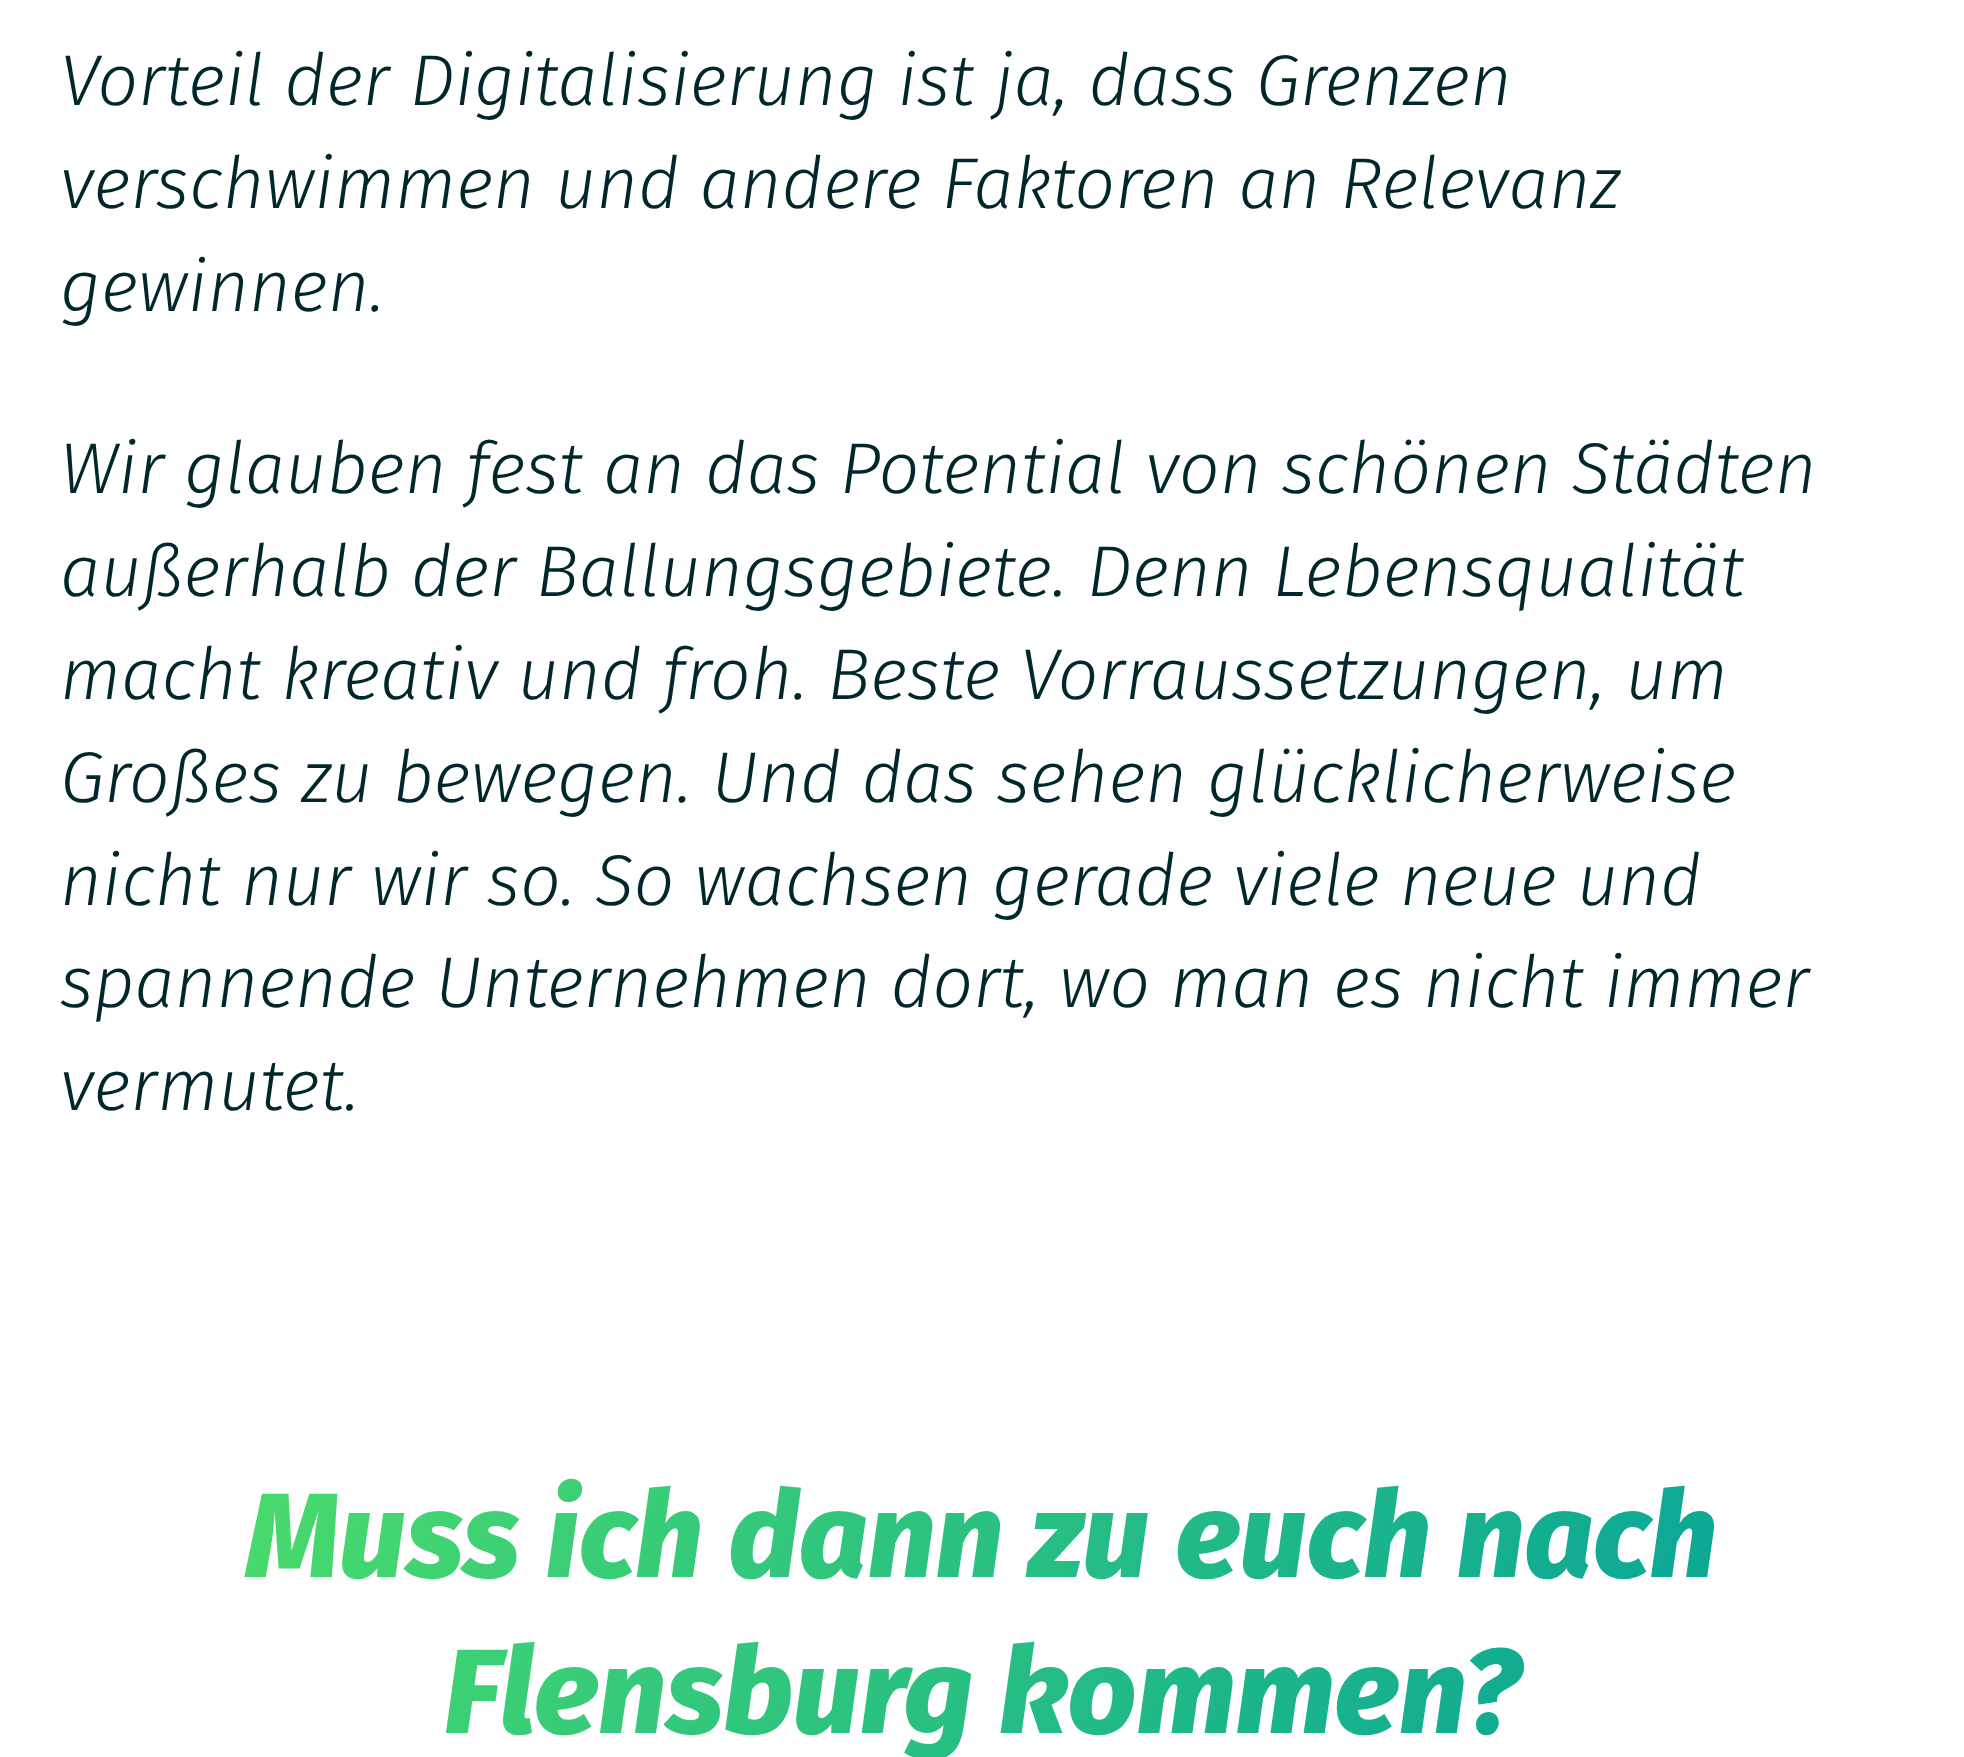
async function draw(canvas) {
  canvas.width = 1964
  canvas.height = 1757
  const ctx = canvas.getContext('2d')
  ctx.miterLimit = 4
  ctx.fontKerning = 'normal'
  let gradient

  ctx.fillStyle = '#fff'
  ctx.fillRect(0, 0, 1964, 1757)
  ctx.font = 'italic 300 72px Fira Sans'
  ctx.fillStyle = '#00272c'
  ctx.fillText('Vorteil der Digitalisierung ist ja, dass Grenzen', 60, 105)
  ctx.fillText('verschwimmen und andere Faktoren an Relevanz', 60, 208)
  ctx.fillText('gewinnen.', 60, 311)
  ctx.fillText('Wir glauben fest an das Potential von schönen Städten', 60, 493)
  ctx.fillText('außerhalb der Ballungsgebiete. Denn Lebensqualität', 60, 596)
  ctx.fillText('macht kreativ und froh. Beste Vorraussetzungen, um', 60, 699)
  ctx.fillText('Großes zu bewegen. Und das sehen glücklicherweise', 60, 802)
  ctx.fillText('nicht nur wir so. So wachsen gerade viele neue und', 60, 905)
  ctx.fillText('spannende Unternehmen dort, wo man es nicht immer', 60, 1007)
  ctx.fillText('vermutet.', 60, 1110)
  ctx.font = 'italic 800 120px Fira Sans'
  gradient = ctx.createLinearGradient(176, 1228, 1788, 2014)
  gradient.addColorStop(0, '#51e167')
  gradient.addColorStop(1, '#009e9d')
  ctx.fillStyle = gradient
  ctx.fillText('Muss ich dann zu euch nach', 246, 1577)
  ctx.fillText('Flensburg kommen?', 444, 1733)
}

draw(document.querySelector('canvas'))
